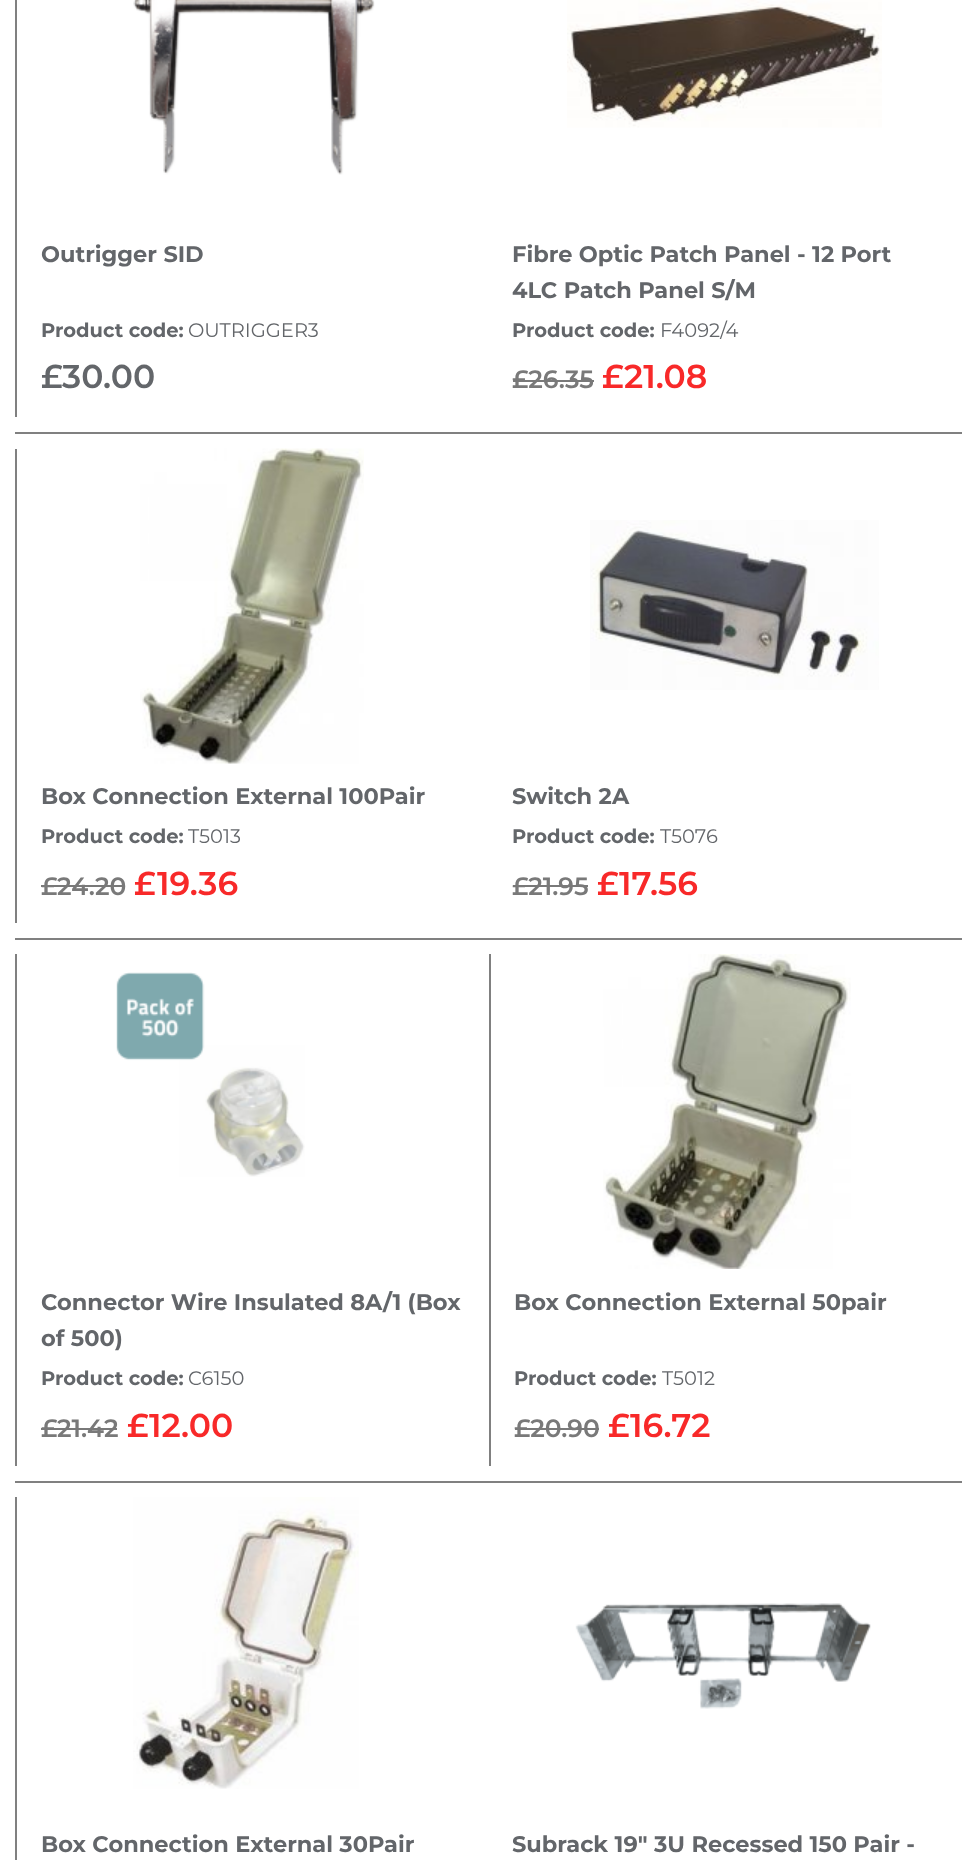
async function draw(canvas) {
  canvas.width = 976
  canvas.height = 1860
  const ctx = canvas.getContext('2d')
  ctx.miterLimit = 4
  ctx.fontKerning = 'normal'
  async function loadImage(src) {
    const img = new Image()
    img.src = src
    await img.decode()
    return img
  }

  ctx.fillStyle = '#fff'
  ctx.fillRect(0, 0, 976, 1860)
  ctx.fillStyle = '#808080'
  ctx.fillRect(15, 432, 947, 2)
  ctx.fillRect(15, 0, 2, 417)
  ctx.drawImage(await loadImage('image0.png'), 133, 0, 242, 175)
  ctx.font = 'bold 22.5px Montserrat'
  ctx.fillStyle = '#63666a'
  ctx.fillText('Outrigger SID', 41, 262)
  ctx.font = 'bold 19.5px Montserrat'
  ctx.fillText('Product code:', 41, 337)
  ctx.font = '19.5px Montserrat'
  ctx.fillText('OUTRIGGER3', 188, 337)
  ctx.font = '600 33px Montserrat'
  ctx.fillText('£', 41, 388)
  ctx.fillText('30.00', 62, 388)
  ctx.drawImage(await loadImage('image1.png'), 567, 0, 315, 128)
  ctx.font = 'bold 22.5px Montserrat'
  ctx.fillText('Fibre Optic Patch Panel - 12 Port', 512, 262)
  ctx.fillText('4LC Patch Panel S/M', 512, 298)
  ctx.font = 'bold 19.5px Montserrat'
  ctx.fillText('Product code:', 512, 337)
  ctx.font = '19.5px Montserrat'
  ctx.fillText('F4092/4', 660, 337)
  ctx.font = '600 25px Montserrat'
  ctx.fillStyle = '#797979'
  ctx.fillText('£26.35', 512, 388)
  ctx.fillRect(513, 380, 81, 2)
  ctx.font = '600 33px Montserrat'
  ctx.fillStyle = '#f82929'
  ctx.fillText('£', 602, 388)
  ctx.fillText('21.08', 624, 388)
  ctx.fillStyle = '#808080'
  ctx.fillRect(15, 938, 947, 2)
  ctx.fillRect(15, 449, 2, 474)
  ctx.drawImage(await loadImage('image2.png'), 140, 448, 224, 316)
  ctx.font = 'bold 22.5px Montserrat'
  ctx.fillStyle = '#63666a'
  ctx.fillText('Box Connection External 100Pair', 41, 804)
  ctx.font = 'bold 19.5px Montserrat'
  ctx.fillText('Product code:', 41, 843)
  ctx.font = '19.5px Montserrat'
  ctx.fillText('T5013', 188, 843)
  ctx.font = '600 25px Montserrat'
  ctx.fillStyle = '#797979'
  ctx.fillText('£', 41, 895)
  ctx.fillRect(41, 885, 16, 2)
  ctx.fillRect(57, 885, 68, 2)
  ctx.fillText('24.20', 57, 895)
  ctx.font = '600 33px Montserrat'
  ctx.fillStyle = '#f82929'
  ctx.fillText('£', 134, 895)
  ctx.fillText('19.36', 157, 895)
  ctx.drawImage(await loadImage('image3.png'), 590, 520, 289, 170)
  ctx.font = 'bold 22.5px Montserrat'
  ctx.fillStyle = '#63666a'
  ctx.fillText('Switch 2A', 512, 804)
  ctx.font = 'bold 19.5px Montserrat'
  ctx.fillText('Product code:', 512, 843)
  ctx.font = '19.5px Montserrat'
  ctx.fillText('T5076', 660, 843)
  ctx.font = '600 25px Montserrat'
  ctx.fillStyle = '#797979'
  ctx.fillText('£21.95', 512, 895)
  ctx.fillRect(513, 885, 75, 2)
  ctx.font = '600 33px Montserrat'
  ctx.fillStyle = '#f82929'
  ctx.fillText('£', 597, 895)
  ctx.fillText('17.56', 619, 895)
  ctx.fillStyle = '#808080'
  ctx.fillRect(15, 1481, 947, 2)
  ctx.fillRect(15, 954, 2, 512)
  ctx.drawImage(await loadImage('image4.png'), 116, 972, 189, 205)
  ctx.font = 'bold 22.5px Montserrat'
  ctx.fillStyle = '#63666a'
  ctx.fillText('Connector Wire Insulated 8A/1 (Box', 41, 1310)
  ctx.fillText('of 500)', 41, 1346)
  ctx.font = 'bold 19.5px Montserrat'
  ctx.fillText('Product code:', 41, 1385)
  ctx.font = '19.5px Montserrat'
  ctx.fillText('C6150', 188, 1385)
  ctx.font = '600 25px Montserrat'
  ctx.fillStyle = '#797979'
  ctx.fillText('£', 41, 1437)
  ctx.fillRect(41, 1428, 16, 2)
  ctx.fillText('21.42', 57, 1437)
  ctx.fillRect(57, 1428, 60, 2)
  ctx.font = '600 33px Montserrat'
  ctx.fillStyle = '#f82929'
  ctx.fillText('£', 127, 1437)
  ctx.fillText('12.00', 149, 1437)
  ctx.fillStyle = '#808080'
  ctx.fillRect(489, 954, 2, 512)
  ctx.drawImage(await loadImage('image5.png'), 603, 954, 248, 315)
  ctx.font = 'bold 22.5px Montserrat'
  ctx.fillStyle = '#63666a'
  ctx.fillText('Box Connection External 50pair', 514, 1310)
  ctx.font = 'bold 19.5px Montserrat'
  ctx.fillText('Product code:', 514, 1385)
  ctx.font = '19.5px Montserrat'
  ctx.fillText('T5012', 662, 1385)
  ctx.font = '600 25px Montserrat'
  ctx.fillStyle = '#797979'
  ctx.fillText('£20.90', 514, 1437)
  ctx.fillRect(515, 1428, 84, 2)
  ctx.font = '600 33px Montserrat'
  ctx.fillStyle = '#f82929'
  ctx.fillText('£', 608, 1437)
  ctx.fillText('16.72', 630, 1437)
  ctx.fillStyle = '#808080'
  ctx.fillRect(15, 1497, 2, 363)
  ctx.drawImage(await loadImage('image6.png'), 133, 1497, 226, 292)
  ctx.font = 'bold 22.5px Montserrat'
  ctx.fillStyle = '#63666a'
  ctx.fillText('Box Connection External 30Pair', 41, 1852)
  ctx.drawImage(await loadImage('image7.png'), 575, 1603, 296, 106)
  ctx.fillText('Subrack 19" 3U Recessed 150 Pair -', 512, 1852)
}

draw(document.querySelector('canvas'))
